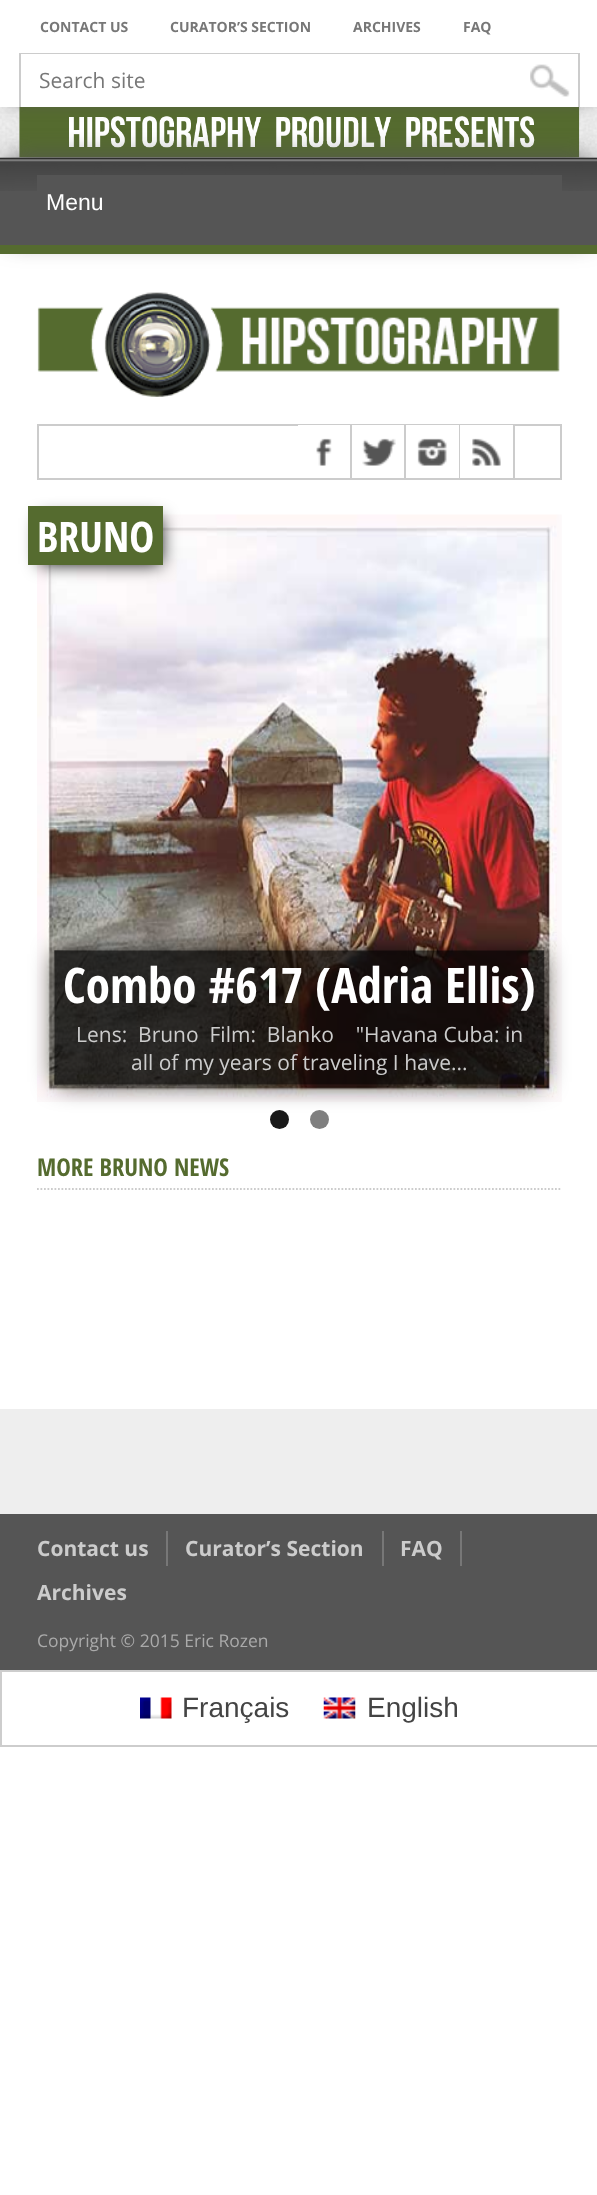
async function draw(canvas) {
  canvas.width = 597
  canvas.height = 2195
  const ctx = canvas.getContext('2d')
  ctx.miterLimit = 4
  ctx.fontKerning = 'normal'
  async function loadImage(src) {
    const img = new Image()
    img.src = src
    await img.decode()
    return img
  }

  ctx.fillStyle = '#fff'
  ctx.fillRect(0, 0, 597, 2195)
  ctx.drawImage(await loadImage('image1.png'), 0, 107, 597, 51)
  ctx.drawImage(await loadImage('image2.png'), 19, 107, 561, 51)
  ctx.fillStyle = '#555'
  ctx.filter = 'blur(9px)'
  ctx.beginPath()
  ctx.rect(9, 11, 581, 89)
  ctx.fill()
  ctx.filter = 'none'
  ctx.fillStyle = '#fff'
  ctx.fillRect(0, 0, 597, 107)
  ctx.font = 'bold 14px Open Sans'
  ctx.fillStyle = '#777'
  ctx.fillText('CONTACT US', 40, 32)
  ctx.fillText('CURATOR’S SECTION', 170, 32)
  ctx.fillText('ARCHIVES', 353, 32)
  ctx.fillText('FAQ', 463, 32)
  ctx.fillStyle = '#ccc'
  ctx.fillRect(19, 53, 560, 1)
  ctx.fillRect(578, 53, 2, 54)
  ctx.fillRect(19, 53, 2, 54)
  ctx.drawImage(await loadImage('image0.png'), 530, 64, 40, 33)
  ctx.font = '21px Open Sans'
  ctx.fillStyle = '#777'
  ctx.fillText('Search site', 39, 88)
  ctx.fillStyle = '#555'
  ctx.filter = 'blur(13px)'
  ctx.beginPath()
  ctx.rect(9, 159, 581, 79)
  ctx.fill()
  ctx.filter = 'none'
  ctx.fillRect(0, 158, 597, 87)
  ctx.drawImage(await loadImage('image3.png'), 0, 157, 597, 34)
  ctx.fillStyle = '#556b2f'
  ctx.fillRect(0, 245, 597, 9)
  ctx.fillStyle = '#555'
  ctx.fillRect(37, 175, 525, 16)
  ctx.font = '23px Liberation Sans'
  ctx.fillStyle = '#fff'
  ctx.fillText('Menu', 46, 210)
  ctx.drawImage(await loadImage('image4.png'), 37, 292, 523, 105)
  ctx.strokeStyle = '#ccc'
  ctx.lineWidth = 2
  ctx.strokeRect(38, 425, 523, 54)
  ctx.fillStyle = '#ccc'
  ctx.fillRect(350, 425, 2, 53)
  ctx.fillStyle = '#fff'
  ctx.fillRect(298, 425, 52, 1)
  ctx.drawImage(await loadImage('image5.png'), 316, 438, 16, 28)
  ctx.fillStyle = '#ccc'
  ctx.fillRect(404, 425, 2, 53)
  ctx.fillStyle = '#fff'
  ctx.fillRect(352, 425, 52, 1)
  ctx.drawImage(await loadImage('image6.png'), 362, 438, 34, 28)
  ctx.fillStyle = '#ccc'
  ctx.fillRect(459, 425, 1, 53)
  ctx.fillStyle = '#fff'
  ctx.fillRect(406, 425, 53, 1)
  ctx.drawImage(await loadImage('image7.png'), 417, 438, 30, 28)
  ctx.fillStyle = '#ccc'
  ctx.fillRect(513, 425, 2, 53)
  ctx.fillStyle = '#fff'
  ctx.fillRect(460, 425, 53, 1)
  ctx.drawImage(await loadImage('image8.png'), 472, 438, 29, 28)
  ctx.drawImage(await loadImage('image9.png'), 37, 514, 525, 588)
  ctx.fillStyle = '#000'
  ctx.filter = 'blur(9px)'
  ctx.beginPath()
  ctx.rect(40, 518, 121, 46)
  ctx.fill()
  ctx.filter = 'none'
  ctx.fillStyle = '#556b2f'
  ctx.fillRect(28, 506, 135, 59)
  ctx.font = 'bold 42px Open Sans Condensed'
  ctx.fillStyle = '#fff'
  ctx.fillText('BRUNO', 37, 552)
  ctx.save()
  ctx.beginPath()
  ctx.moveTo(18, 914)
  ctx.lineTo(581, 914)
  ctx.lineTo(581, 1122)
  ctx.lineTo(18, 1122)
  ctx.closePath()
  ctx.moveTo(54, 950)
  ctx.lineTo(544, 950)
  ctx.lineTo(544, 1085)
  ctx.lineTo(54, 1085)
  ctx.closePath()
  ctx.clip('evenodd')
  ctx.fillStyle = '#000'
  ctx.filter = 'blur(13px)'
  ctx.beginPath()
  ctx.rect(58, 954, 483, 128)
  ctx.fill()
  ctx.filter = 'none'
  ctx.restore()
  ctx.drawImage(await loadImage('image10.png'), 54, 950, 491, 136)
  ctx.font = 'bold 49px Open Sans Condensed'
  ctx.fillText('Combo #617 (Adria Ellis)', 63, 1003)
  ctx.font = '21px Open Sans'
  ctx.fillStyle = '#ccc'
  ctx.fillText('Lens:  Bruno  Film:  Blanko    "Havana Cuba: in', 76, 1042)
  ctx.fillText('all of my years of traveling I have...', 131, 1070)
  ctx.fillStyle = '#000000e6'
  ctx.beginPath()
  ctx.arc(279.5, 1119.5, 9.5, 0, 2 * Math.PI)
  ctx.fill()
  ctx.fillStyle = '#00000080'
  ctx.beginPath()
  ctx.arc(319.5, 1119.5, 9.5, 0, 2 * Math.PI)
  ctx.fill()
  ctx.beginPath()
  ctx.moveTo(37, 1189)
  ctx.lineTo(562, 1189)
  ctx.lineWidth = 1.8
  ctx.setLineDash([1.75, 1.75])
  ctx.stroke()
  ctx.font = 'bold 24.5px Open Sans Condensed'
  ctx.fillStyle = '#556b2f'
  ctx.fillText('MORE BRUNO NEWS', 37, 1176)
  ctx.fillStyle = '#eee'
  ctx.fillRect(0, 1409, 597, 105)
  ctx.fillStyle = '#555'
  ctx.fillRect(0, 1514, 597, 156)
  ctx.fillStyle = '#777'
  ctx.fillRect(166, 1531, 2, 35)
  ctx.font = 'bold 21px Open Sans'
  ctx.fillStyle = '#ccc'
  ctx.fillText('Contact us', 37, 1556)
  ctx.fillStyle = '#777'
  ctx.fillRect(382, 1531, 2, 35)
  ctx.fillStyle = '#ccc'
  ctx.fillText('Curator’s Section', 185, 1556)
  ctx.fillStyle = '#777'
  ctx.fillRect(460, 1531, 2, 35)
  ctx.fillStyle = '#ccc'
  ctx.fillText('FAQ', 400, 1556)
  ctx.fillText('Archives', 37, 1600)
  ctx.font = '17.5px Open Sans'
  ctx.fillStyle = '#aaa'
  ctx.fillText('Copyright © 2015 Eric Rozen', 37, 1647)
  ctx.strokeStyle = '#cdcdcd'
  ctx.lineWidth = 2
  ctx.setLineDash([])
  ctx.strokeRect(1, 1671, 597, 75)
  ctx.drawImage(await loadImage('image11.png'), 140, 1697, 32, 22)
  ctx.font = '28px Liberation Sans'
  ctx.fillStyle = '#444'
  ctx.fillText('Français', 182, 1717)
  ctx.drawImage(await loadImage('image12.png'), 323, 1697, 33, 22)
  ctx.fillText('English', 367, 1717)
}

draw(document.querySelector('canvas'))
